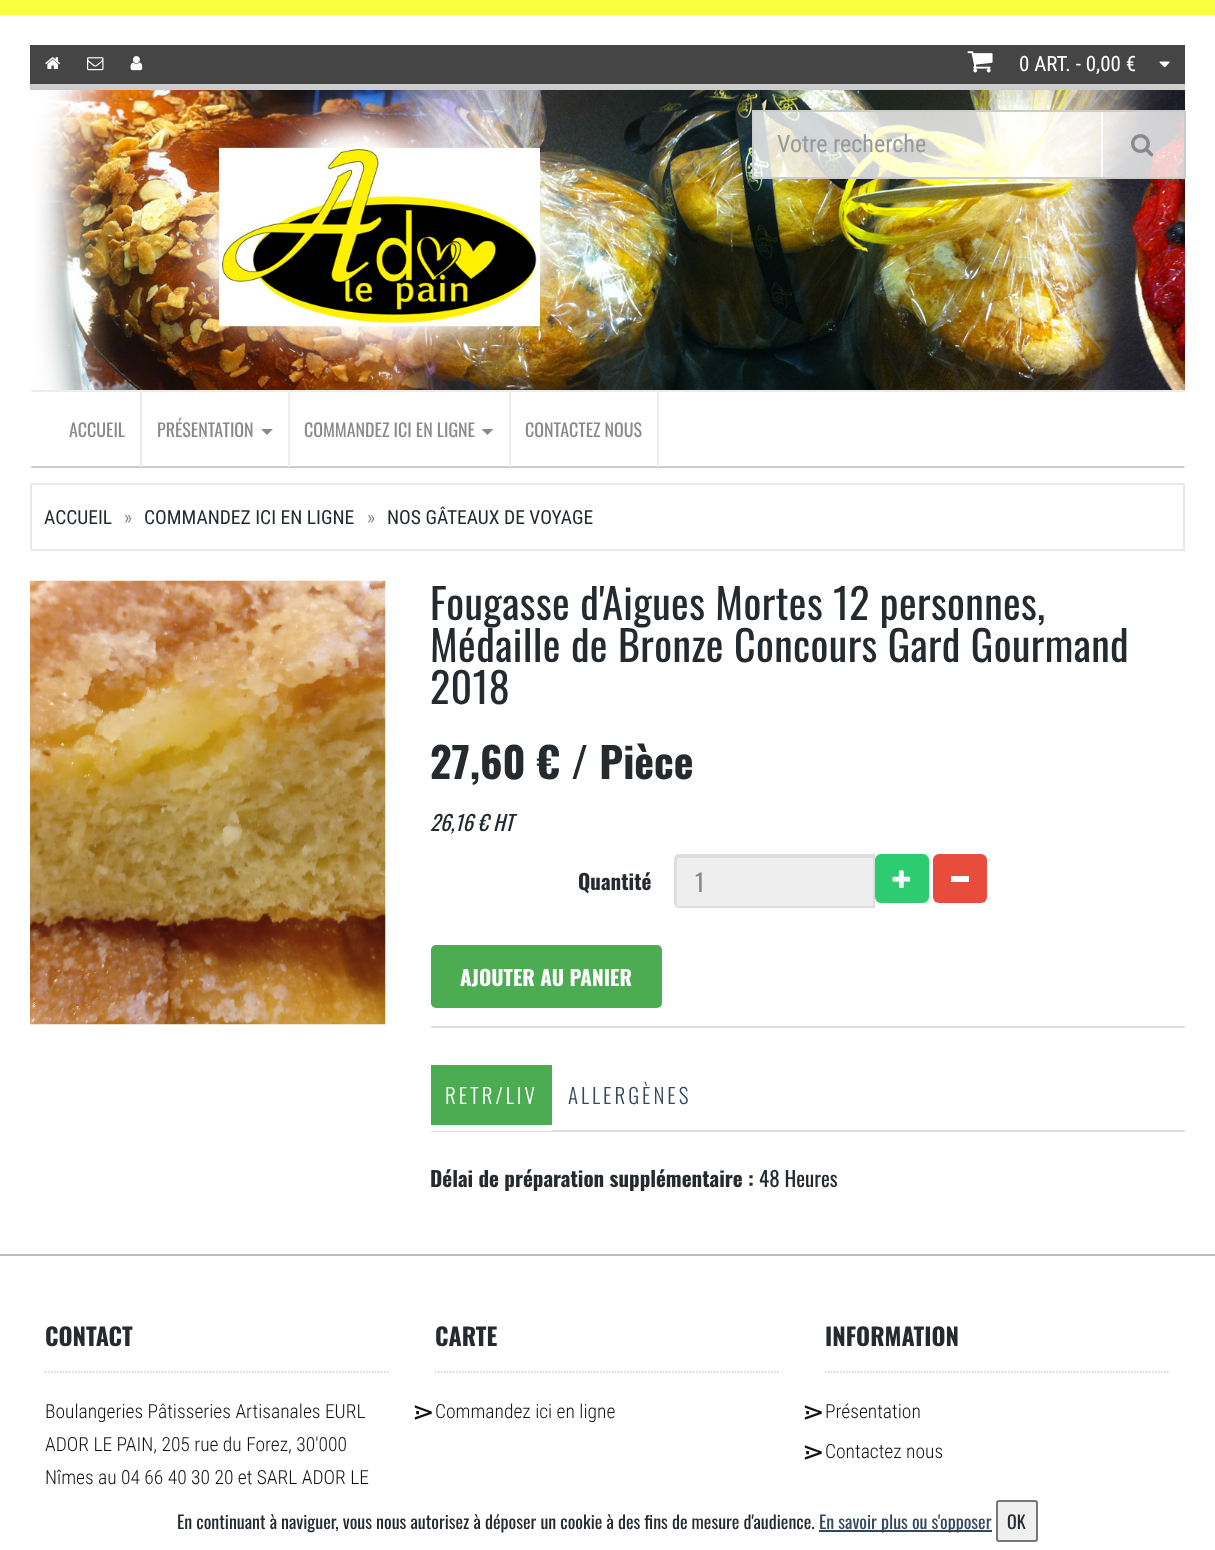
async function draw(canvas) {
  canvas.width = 1215
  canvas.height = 1550
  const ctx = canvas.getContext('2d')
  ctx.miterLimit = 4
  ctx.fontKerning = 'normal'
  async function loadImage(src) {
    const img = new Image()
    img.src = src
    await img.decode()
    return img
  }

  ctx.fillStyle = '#f9ff3e'
  ctx.fillRect(0, 0, 1215, 1550)
  ctx.fillStyle = '#fff'
  ctx.fillRect(0, 15, 1215, 1535)
  ctx.fillStyle = '#454545'
  ctx.fillRect(30, 45, 1155, 39)
  ctx.fillStyle = '#ccc'
  ctx.fillRect(30, 84, 1155, 6)
  ctx.drawImage(await loadImage('image0.png'), 45, 57, 15, 12)
  ctx.drawImage(await loadImage('image1.png'), 87, 57, 17, 14)
  ctx.drawImage(await loadImage('image2.png'), 130, 56, 13, 15)
  ctx.drawImage(await loadImage('image3.png'), 967, 51, 26, 22)
  ctx.font = '21px Roboto Condensed'
  ctx.fillStyle = '#fff'
  ctx.fillText('0 ART. - 0,00 €', 1019, 71)
  ctx.drawImage(await loadImage('image4.png'), 1159, 61, 11, 7)
  ctx.drawImage(await loadImage('image5.png'), 35, 90, 1150, 300)
  ctx.fillStyle = '#ffffffcc'
  ctx.fillRect(1101, 112, 83, 65)
  ctx.fillStyle = '#ccc'
  ctx.fillRect(752, 110, 433, 2)
  ctx.fillRect(1184, 110, 2, 69)
  ctx.fillRect(752, 177, 433, 2)
  ctx.drawImage(await loadImage('image6.png'), 1131, 134, 23, 23)
  ctx.fillStyle = '#ffffffcc'
  ctx.fillRect(754, 112, 349, 65)
  ctx.fillStyle = '#ccc'
  ctx.fillRect(752, 110, 2, 69)
  ctx.font = '24px Roboto Condensed'
  ctx.fillStyle = '#999'
  ctx.fillText('Votre recherche', 777, 152)
  ctx.fillStyle = '#ededed'
  ctx.beginPath()
  ctx.moveTo(30, 390)
  ctx.lineTo(1185, 390)
  ctx.lineTo(1184, 392)
  ctx.lineTo(32, 392)
  ctx.closePath()
  ctx.fill()
  ctx.fillStyle = '#ccc'
  ctx.beginPath()
  ctx.moveTo(1185, 468)
  ctx.lineTo(30, 468)
  ctx.lineTo(32, 466)
  ctx.lineTo(1184, 466)
  ctx.closePath()
  ctx.fill()
  ctx.fillStyle = '#ededed'
  ctx.fillRect(140, 392, 2, 75)
  ctx.font = '18px Oswald'
  ctx.fillStyle = '#878a8c'
  ctx.fillText('ACCUEIL', 69, 437)
  ctx.fillStyle = '#ededed'
  ctx.fillRect(288, 392, 2, 75)
  ctx.fillStyle = '#878a8c'
  ctx.fillText('PRÉSENTATION', 157, 437)
  ctx.beginPath()
  ctx.moveTo(261, 429)
  ctx.lineTo(273, 429)
  ctx.lineTo(267, 435)
  ctx.closePath()
  ctx.fill()
  ctx.fillStyle = '#ededed'
  ctx.fillRect(509, 392, 2, 75)
  ctx.fillStyle = '#878a8c'
  ctx.fillText('COMMANDEZ ICI EN LIGNE', 304, 437)
  ctx.beginPath()
  ctx.moveTo(481.5, 429)
  ctx.lineTo(493.5, 429)
  ctx.lineTo(487.5, 435)
  ctx.closePath()
  ctx.fill()
  ctx.fillStyle = '#ededed'
  ctx.fillRect(657, 392, 2, 75)
  ctx.fillStyle = '#878a8c'
  ctx.fillText('CONTACTEZ NOUS', 525, 437)
  ctx.strokeStyle = '#e8e8e8'
  ctx.lineWidth = 2
  ctx.strokeRect(31, 484, 1153, 66)
  ctx.font = '19.5px Roboto Condensed'
  ctx.fillStyle = '#252a2f'
  ctx.fillText('ACCUEIL', 44, 524)
  ctx.fillStyle = '#878a8c'
  ctx.fillText('»', 124, 524)
  ctx.fillStyle = '#252a2f'
  ctx.fillText('COMMANDEZ ICI EN LIGNE', 144, 524)
  ctx.fillStyle = '#878a8c'
  ctx.fillText('»', 367, 524)
  ctx.fillStyle = '#252a2f'
  ctx.fillText('NOS GÂTEAUX DE VOYAGE', 387, 524)
  ctx.drawImage(await loadImage('image7.png'), 30, 580, 356, 445)
  ctx.letterSpacing = '0.4px'
  ctx.font = '42px Oswald'
  ctx.fillText('Fougasse d\'Aigues Mortes 12 personnes,', 430, 620)
  ctx.fillText('Médaille de Bronze Concours Gard Gourmand', 430, 662)
  ctx.fillText('2018', 430, 704)
  ctx.letterSpacing = '0px'
  ctx.font = 'bold 42px Oswald'
  ctx.fillText('27,60 € / Pièce', 430, 779)
  ctx.font = 'italic 21px Oswald'
  ctx.fillText('26,16 € HT', 430, 831)
  ctx.font = 'bold 21px Oswald'
  ctx.fillText('Quantité', 578, 890)
  ctx.fillStyle = '#eee'
  ctx.beginPath()
  ctx.moveTo(678, 856)
  ctx.lineTo(873, 856)
  ctx.lineTo(873, 906)
  ctx.lineTo(678, 906)
  ctx.bezierCurveTo(677, 906, 676, 905, 676, 903)
  ctx.lineTo(676, 858)
  ctx.bezierCurveTo(676, 857, 677, 856, 678, 856)
  ctx.closePath()
  ctx.fill()
  ctx.fillStyle = '#dcdcdc'
  ctx.beginPath()
  ctx.moveTo(678, 858)
  ctx.lineTo(873, 858)
  ctx.lineTo(873, 856)
  ctx.lineTo(678, 856)
  ctx.bezierCurveTo(677, 857, 676, 858, 676, 859)
  ctx.closePath()
  ctx.fill()
  ctx.beginPath()
  ctx.roundRect(675, 855, 199, 52, [4, 0, 0, 4])
  ctx.strokeStyle = '#ddd'
  ctx.stroke()
  ctx.fillStyle = '#ddd'
  ctx.fillRect(677, 856, 1, 1)
  ctx.fillRect(676, 857, 1, 49)
  ctx.font = '24px Oswald'
  ctx.fillStyle = '#878a8c'
  ctx.fillText('1', 695, 892)
  ctx.fillStyle = '#2ecc71'
  ctx.beginPath()
  ctx.roundRect(875, 854, 54, 49, 6)
  ctx.fill()
  ctx.drawImage(await loadImage('image8.png'), 892, 870, 19, 18)
  ctx.fillStyle = '#e74c3c'
  ctx.beginPath()
  ctx.roundRect(933, 854, 54, 49, 6)
  ctx.fill()
  ctx.fillStyle = '#fff'
  ctx.fillRect(951, 876, 18, 6)
  ctx.fillStyle = '#ddd'
  ctx.fillRect(431, 1026, 754, 2)
  ctx.fillStyle = '#4bac52'
  ctx.beginPath()
  ctx.roundRect(431, 945, 231, 63, 5)
  ctx.fill()
  ctx.font = 'bold 21px Oswald'
  ctx.fillStyle = '#fff'
  ctx.fillText('AJOUTER AU PANIER', 460, 986)
  ctx.fillStyle = '#ddd'
  ctx.fillRect(431, 1130, 754, 2)
  ctx.fillStyle = '#4bac52'
  ctx.fillRect(431, 1065, 121, 60)
  ctx.fillStyle = '#fff'
  ctx.fillRect(431, 1130, 121, 1)
  ctx.letterSpacing = '3px'
  ctx.font = '300 21px Oswald'
  ctx.fillText('RETR/LIV', 445, 1104)
  ctx.fillStyle = '#34495e'
  ctx.fillText('ALLERGÈNES', 568, 1104)
  ctx.letterSpacing = '0px'
  ctx.font = 'bold 21px Oswald'
  ctx.fillStyle = '#252a2f'
  ctx.fillText('Délai de préparation supplémentaire :', 430, 1187)
  ctx.font = '21px Oswald'
  ctx.fillText('48 Heures', 759, 1187)
  ctx.fillStyle = '#bcbcbc'
  ctx.fillRect(0, 1254, 1215, 2)
  ctx.beginPath()
  ctx.moveTo(45, 1372)
  ctx.lineTo(390, 1372)
  ctx.strokeStyle = '#ccc'
  ctx.lineWidth = 1.5
  ctx.setLineDash([1.5, 1.5])
  ctx.stroke()
  ctx.font = 'bold 24px Oswald'
  ctx.fillStyle = '#252a2f'
  ctx.fillText('CONTACT', 45, 1346)
  ctx.font = '300 19.5px Roboto Condensed'
  ctx.fillStyle = '#121212'
  ctx.fillText('Boulangeries Pâtisseries Artisanales EURL', 45, 1418)
  ctx.fillText('ADOR LE PAIN, 205 rue du Forez, 30\'000', 45, 1451)
  ctx.fillText('Nîmes au 04 66 40 30 20 et SARL ADOR LE', 45, 1484)
  ctx.beginPath()
  ctx.moveTo(435, 1372)
  ctx.lineTo(780, 1372)
  ctx.stroke()
  ctx.font = 'bold 24px Oswald'
  ctx.fillStyle = '#252a2f'
  ctx.fillText('CARTE', 435, 1346)
  ctx.font = '27px DejaVu Sans'
  ctx.fillStyle = '#121212'
  ctx.fillText('⋗', 412, 1421)
  ctx.font = '300 19.5px Roboto Condensed'
  ctx.fillText('Commandez ici en ligne', 435, 1418)
  ctx.beginPath()
  ctx.moveTo(825, 1372)
  ctx.lineTo(1170, 1372)
  ctx.stroke()
  ctx.font = 'bold 24px Oswald'
  ctx.fillStyle = '#252a2f'
  ctx.fillText('INFORMATION', 825, 1346)
  ctx.font = '27px DejaVu Sans'
  ctx.fillStyle = '#121212'
  ctx.fillText('⋗', 802, 1421)
  ctx.font = '300 19.5px Roboto Condensed'
  ctx.fillText('Présentation', 825, 1418)
  ctx.font = '27px DejaVu Sans'
  ctx.fillText('⋗', 802, 1461)
  ctx.font = '300 19.5px Roboto Condensed'
  ctx.fillText('Contactez nous', 825, 1458)
  ctx.font = '18px Oswald'
  ctx.fillStyle = '#252a2f'
  ctx.fillText('En continuant à naviguer, vous nous autorisez à déposer un cookie à des fins de mesure d\'audience.', 177, 1529)
  ctx.fillStyle = '#34495e'
  ctx.fillRect(819, 1530, 173, 2)
  ctx.fillText('En savoir plus ou s\'opposer', 819, 1529)
  ctx.fillStyle = '#efefef'
  ctx.beginPath()
  ctx.roundRect(997, 1501, 40, 40, 2)
  ctx.fill()
  ctx.strokeStyle = '#767676'
  ctx.lineWidth = 2
  ctx.setLineDash([])
  ctx.stroke()
  ctx.fillStyle = '#252a2f'
  ctx.fillText('OK', 1007, 1529)
}

draw(document.querySelector('canvas'))
